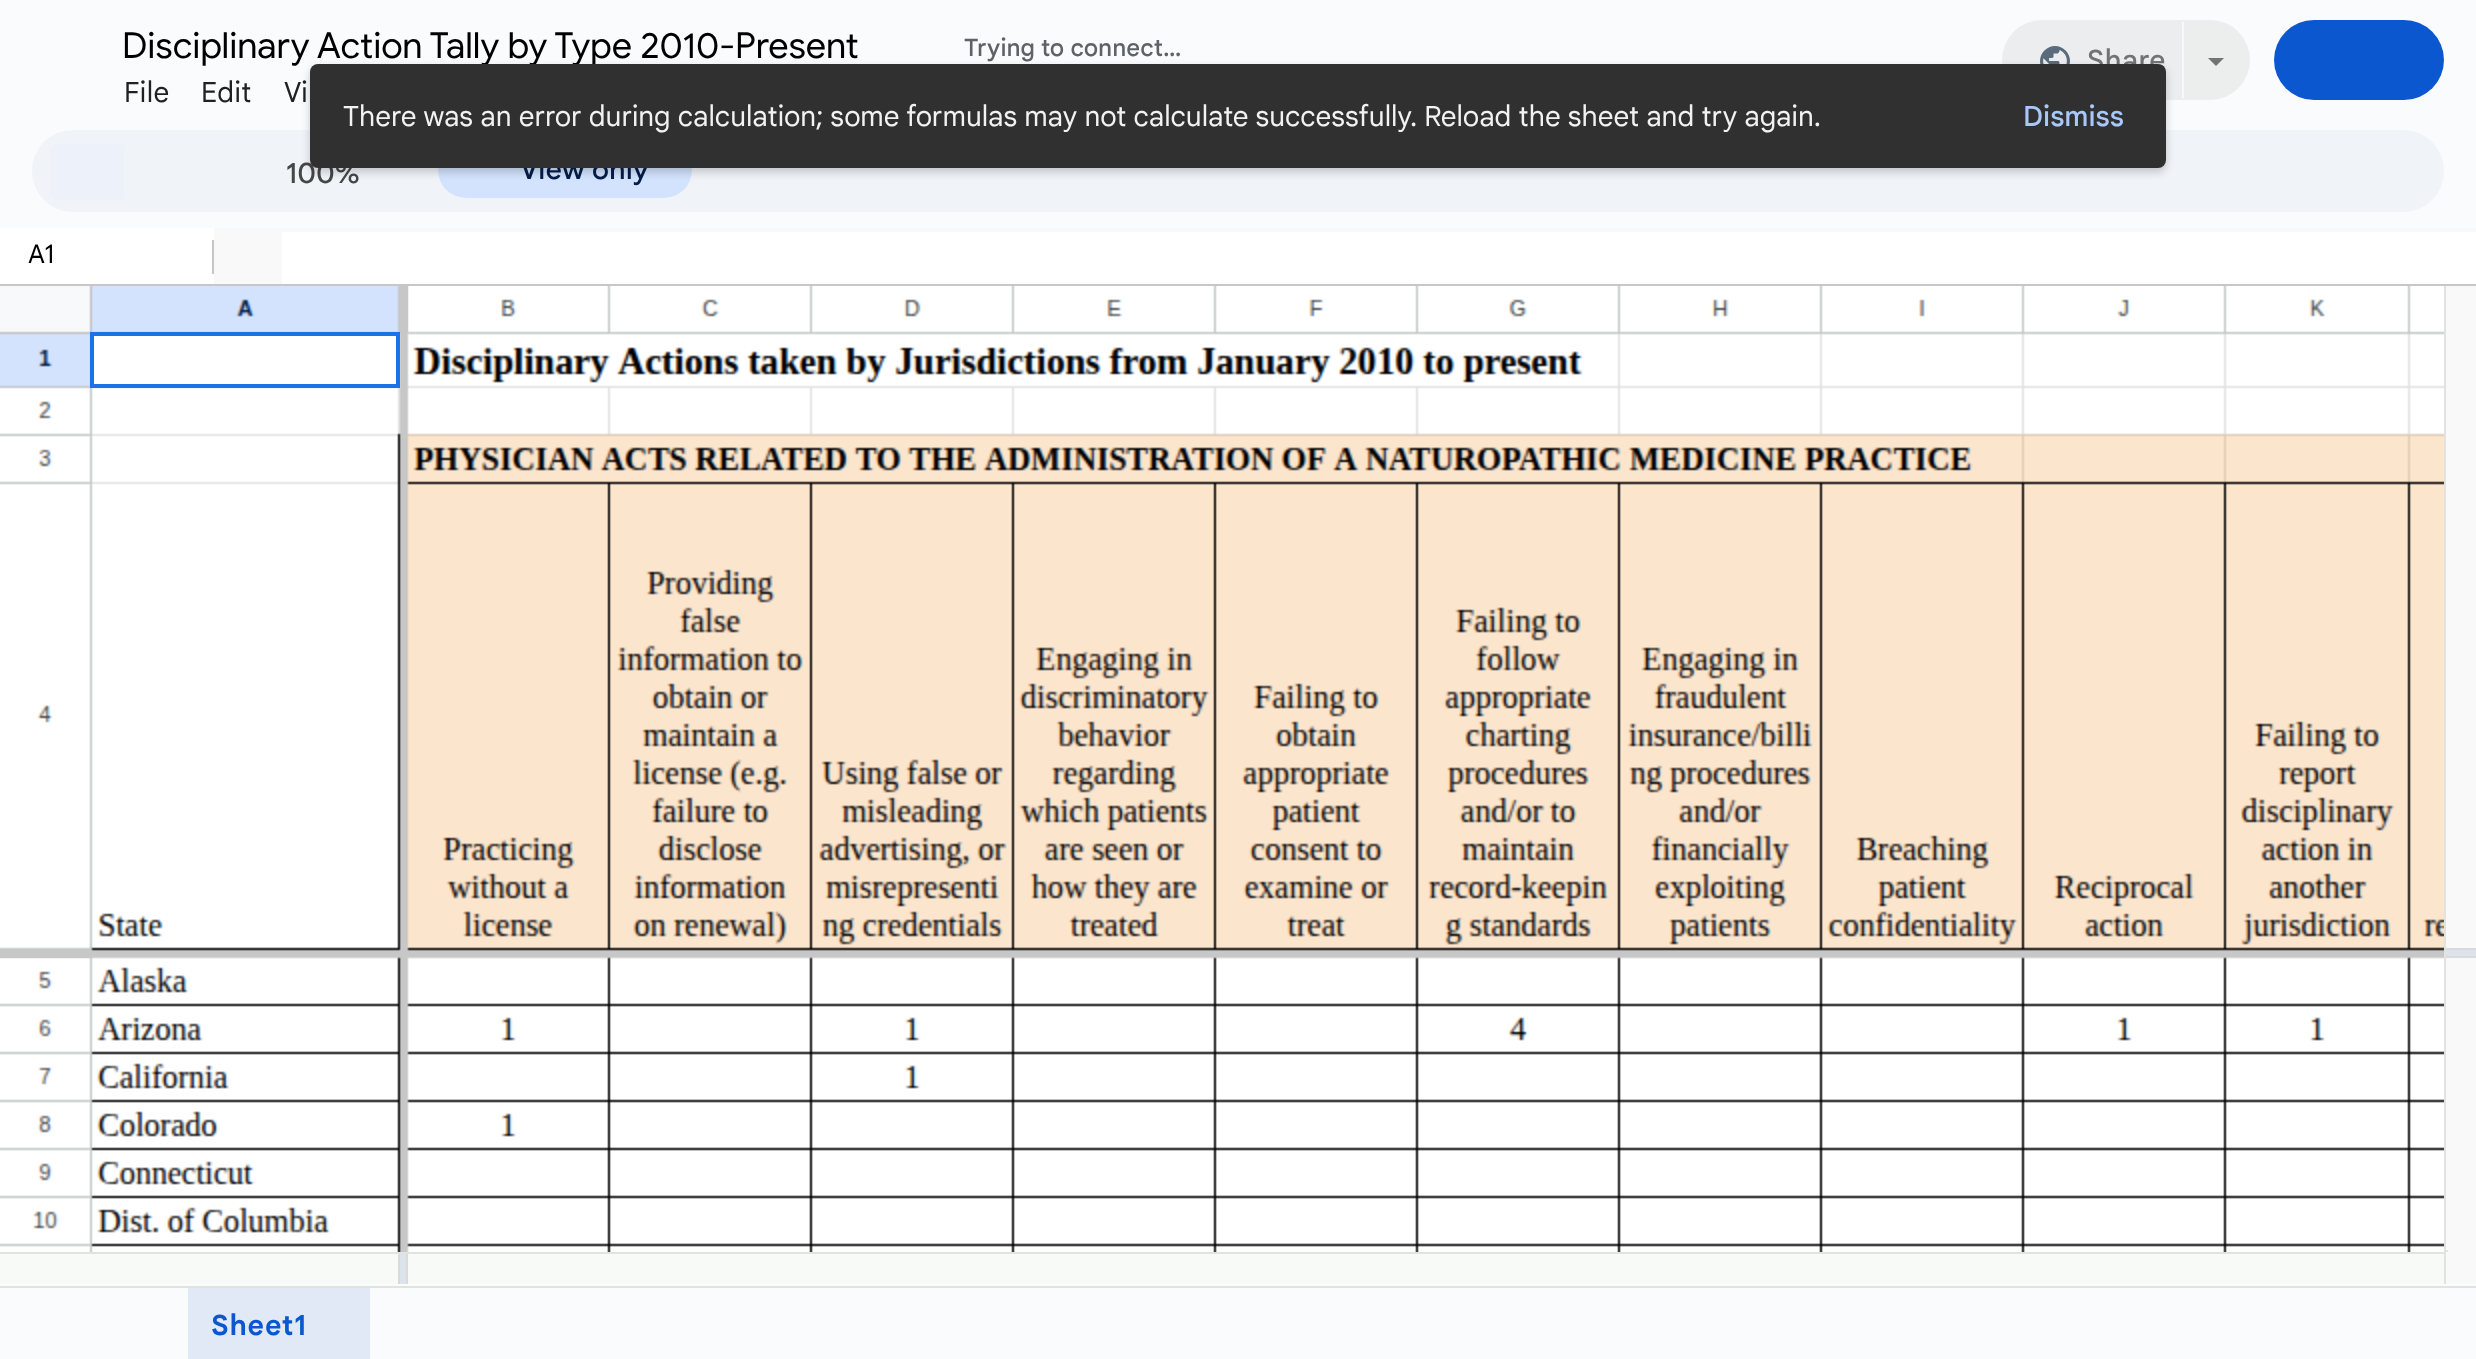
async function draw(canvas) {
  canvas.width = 2476
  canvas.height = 1359
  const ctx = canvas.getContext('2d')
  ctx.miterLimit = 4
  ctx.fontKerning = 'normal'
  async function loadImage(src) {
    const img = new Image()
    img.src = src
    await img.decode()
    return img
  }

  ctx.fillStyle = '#f9fbfd'
  ctx.fillRect(0, 0, 2476, 1359)
  ctx.font = '36px "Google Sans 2"'
  ctx.fillStyle = '#000'
  ctx.fillText('Disciplinary Action Tally by Type 2010-Present', 122, 58)
  ctx.font = '500 24px Google Sans'
  ctx.fillStyle = '#5f6368'
  ctx.fillText('Trying to connect…', 964, 56)
  ctx.fillStyle = '#ecedee'
  ctx.beginPath()
  ctx.roundRect(2002, 20, 182, 80, [40, 0, 0, 40])
  ctx.fill()
  ctx.drawImage(await loadImage('image0.png'), 2040, 46, 30, 18)
  ctx.letterSpacing = '0.5px'
  ctx.font = '500 28px Google Sans'
  ctx.fillStyle = '#727373'
  ctx.fillText('Share', 2087, 70)
  ctx.fillStyle = '#e4e4e49e'
  ctx.beginPath()
  ctx.roundRect(2182, 20, 68, 80, [0, 40, 40, 0])
  ctx.fill()
  ctx.fillStyle = '#f8f8f9'
  ctx.beginPath()
  ctx.moveTo(2184, 22)
  ctx.lineTo(2182, 20)
  ctx.lineTo(2182, 100)
  ctx.lineTo(2184, 98)
  ctx.closePath()
  ctx.fill()
  ctx.fillStyle = '#727373'
  ctx.beginPath()
  ctx.moveTo(2208, 58)
  ctx.lineTo(2224, 58)
  ctx.lineTo(2216, 66)
  ctx.closePath()
  ctx.fill()
  ctx.fillStyle = '#0b57d0'
  ctx.beginPath()
  ctx.roundRect(2274, 20, 170, 80, 40)
  ctx.fill()
  ctx.font = '28px Google Sans'
  ctx.fillStyle = '#202124'
  ctx.fillText('File', 124, 102)
  ctx.fillText('Edit', 201, 102)
  ctx.fillText('Vi', 284, 102)
  ctx.fillStyle = '#f0f4f9'
  ctx.beginPath()
  ctx.roundRect(32, 130, 2412, 82, 41)
  ctx.fill()
  ctx.fillStyle = '#edf2fa'
  ctx.beginPath()
  ctx.roundRect(50, 144, 88, 56, 8)
  ctx.fill()
  ctx.fillStyle = '#f0f4f9'
  ctx.beginPath()
  ctx.roundRect(124, 142, 60, 60, 8)
  ctx.fill()
  ctx.letterSpacing = '0px'
  ctx.font = '500 28px Google Sans'
  ctx.fillStyle = '#444746'
  ctx.fillText('100%', 286, 183)
  ctx.fillStyle = '#d3e3fd'
  ctx.beginPath()
  ctx.roundRect(438, 142, 254, 56, 28)
  ctx.fill()
  ctx.letterSpacing = '0.5px'
  ctx.font = '500 28px "Google Sans 2"'
  ctx.fillStyle = '#041e49'
  ctx.fillText('View only', 520, 179)
  ctx.fillStyle = '#00000033'
  ctx.filter = 'blur(4px)'
  ctx.beginPath()
  ctx.roundRect(310, 68, 1856, 104, 8)
  ctx.fill()
  ctx.filter = 'none'
  ctx.fillStyle = '#303030'
  ctx.beginPath()
  ctx.roundRect(310, 64, 1856, 104, 8)
  ctx.fill()
  ctx.letterSpacing = '0px'
  ctx.font = '28px Google Sans'
  ctx.fillStyle = '#f2f2f2'
  ctx.fillText('There was an error during calculation; some formulas may not calculate successfully. Reload the sheet and try again.', 343, 126)
  ctx.font = '500 28px Google Sans'
  ctx.fillStyle = '#a8c7fa'
  ctx.fillText('Dismiss', 2023, 126)
  ctx.fillStyle = '#fff'
  ctx.fillRect(0, 228, 214, 56)
  ctx.font = '26px Google Sans'
  ctx.fillStyle = '#000'
  ctx.fillText('A1', 28, 263)
  ctx.fillStyle = '#c7c7c7'
  ctx.fillRect(212, 240, 2, 34)
  ctx.fillStyle = '#f9f9f9'
  ctx.fillRect(214, 228, 2262, 56)
  ctx.fillStyle = '#fff'
  ctx.fillRect(282, 232, 2194, 52)
  ctx.fillStyle = '#c7c7c7'
  ctx.fillRect(0, 284, 2476, 2)
  ctx.fillStyle = '#f8faf8'
  ctx.fillRect(0, 1254, 2444, 30)
  ctx.drawImage(await loadImage('image1.png'), 0, 286, 2444, 966)
  ctx.fillStyle = '#1a73e8'
  ctx.fillRect(90, 332, 310, 4)
  ctx.fillRect(90, 384, 310, 4)
  ctx.fillRect(90, 332, 4, 56)
  ctx.fillRect(396, 332, 4, 56)
  ctx.fillStyle = '#c7c7c7'
  ctx.fillRect(407, 286, 1, 46)
  ctx.fillRect(0, 950, 92, 8)
  ctx.fillStyle = '#f9f9f9'
  ctx.fillRect(2446, 286, 30, 998)
  ctx.fillStyle = '#e1e3e1'
  ctx.fillRect(2444, 286, 2, 998)
  ctx.fillStyle = '#dde3ea'
  ctx.fillRect(2446, 950, 30, 6)
  ctx.fillStyle = '#dadada'
  ctx.fillRect(2446, 948, 30, 2)
  ctx.fillRect(2446, 956, 30, 2)
  ctx.fillStyle = '#e1e3e1'
  ctx.fillRect(2446, 1250, 2, 2)
  ctx.fillRect(0, 1252, 2444, 2)
  ctx.fillStyle = '#dde3ea'
  ctx.fillRect(400, 1254, 6, 30)
  ctx.fillStyle = '#dadada'
  ctx.fillRect(406, 1254, 2, 30)
  ctx.fillRect(398, 1254, 2, 30)
  ctx.fillStyle = '#e1e3e1'
  ctx.fillRect(0, 1286, 2476, 2)
  ctx.fillStyle = '#e1e9f7'
  ctx.fillRect(188, 1288, 182, 71)
  ctx.letterSpacing = '0.75px'
  ctx.font = 'bold 28px Google Sans'
  ctx.fillStyle = '#0b57d0'
  ctx.fillText('Sheet1', 211, 1335)
}

draw(document.querySelector('canvas'))
